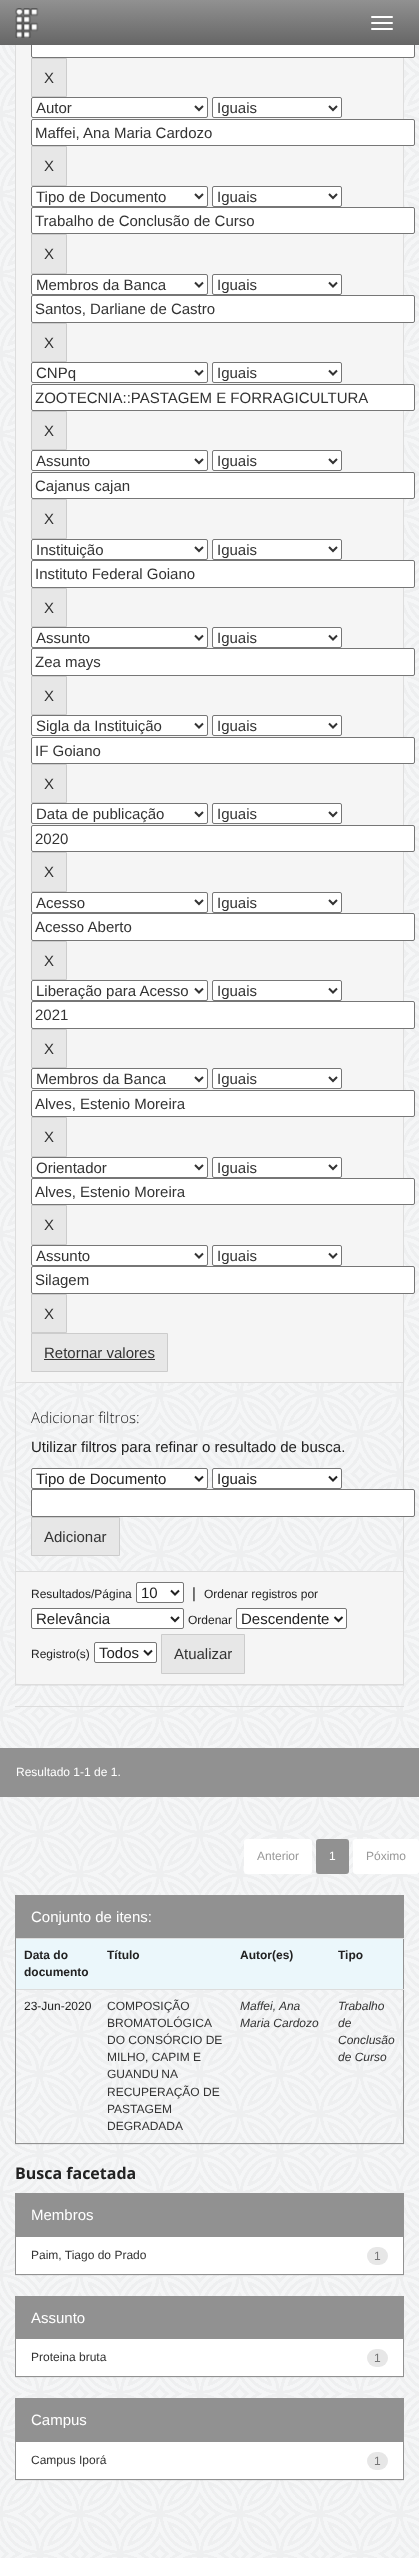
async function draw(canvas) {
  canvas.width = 419
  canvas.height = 2558
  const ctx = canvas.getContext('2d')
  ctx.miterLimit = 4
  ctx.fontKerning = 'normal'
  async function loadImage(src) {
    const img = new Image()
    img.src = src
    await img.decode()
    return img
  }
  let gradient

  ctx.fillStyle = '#fff'
  ctx.fillRect(0, 0, 419, 2558)
  ctx.drawImage(await loadImage('image0.png'), 0, 45, 419, 2513)
  ctx.save()
  ctx.beginPath()
  ctx.rect(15, 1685, 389, 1)
  ctx.clip()
  ctx.fillStyle = '#0000000d'
  ctx.filter = 'blur(0.5px)'
  ctx.beginPath()
  ctx.rect(15, -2, 389, 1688)
  ctx.fill()
  ctx.filter = 'none'
  ctx.restore()
  ctx.strokeStyle = '#ddd'
  ctx.strokeRect(15.5, -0.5, 388, 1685)
  ctx.fillStyle = '#f5f5f5'
  ctx.fillRect(16, 45, 387, 1337)
  ctx.fillStyle = '#fff'
  ctx.beginPath()
  ctx.roundRect(31.5, 31.5, 383, 26, 1.5)
  ctx.fill()
  ctx.strokeStyle = '#767676'
  ctx.stroke()
  gradient = ctx.createLinearGradient(210, 0, 210, 45)
  gradient.addColorStop(0, '#919191')
  gradient.addColorStop(1, '#666')
  ctx.fillStyle = gradient
  ctx.fillRect(0, 0, 419, 45)
  ctx.drawImage(await loadImage('image1.png'), 15, 8, 24, 30)
  ctx.fillStyle = '#fff'
  ctx.beginPath()
  ctx.roundRect(371, 16, 22, 2, 1)
  ctx.fill()
  ctx.beginPath()
  ctx.roundRect(371, 22, 22, 2, 1)
  ctx.fill()
  ctx.beginPath()
  ctx.roundRect(371, 28, 22, 2, 1)
  ctx.fill()
  ctx.fillStyle = '#ddd'
  ctx.fillRect(16, 1382, 387, 1)
  ctx.fillStyle = '#e7e7e7'
  ctx.beginPath()
  ctx.rect(31.5, 58.5, 35, 38)
  ctx.fill()
  ctx.strokeStyle = '#ccc'
  ctx.stroke()
  ctx.font = '15px Liberation Sans'
  ctx.fillStyle = '#333'
  ctx.fillText('X', 44, 83)
  ctx.fillStyle = '#fff'
  ctx.beginPath()
  ctx.roundRect(31.5, 97.5, 176, 20, 1.5)
  ctx.fill()
  ctx.strokeStyle = '#767676'
  ctx.stroke()
  ctx.beginPath()
  ctx.moveTo(195, 106)
  ctx.lineTo(199, 110)
  ctx.lineTo(203, 106)
  ctx.strokeStyle = '#333'
  ctx.lineWidth = 2
  ctx.stroke()
  ctx.fillStyle = '#333'
  ctx.fillText('Autor', 36, 113)
  ctx.fillStyle = '#fff'
  ctx.beginPath()
  ctx.roundRect(212.5, 97.5, 129, 20, 1.5)
  ctx.fill()
  ctx.strokeStyle = '#767676'
  ctx.lineWidth = 1
  ctx.stroke()
  ctx.beginPath()
  ctx.moveTo(329, 106)
  ctx.lineTo(333, 110)
  ctx.lineTo(337, 106)
  ctx.strokeStyle = '#333'
  ctx.lineWidth = 2
  ctx.stroke()
  ctx.fillStyle = '#333'
  ctx.fillText('Iguais', 217, 113)
  ctx.fillStyle = '#fff'
  ctx.beginPath()
  ctx.roundRect(31.5, 119.5, 383, 26, 1.5)
  ctx.fill()
  ctx.strokeStyle = '#767676'
  ctx.lineWidth = 1
  ctx.stroke()
  ctx.fillStyle = '#333'
  ctx.fillText('Maffei, Ana Maria Cardozo', 35, 138)
  ctx.fillStyle = '#e7e7e7'
  ctx.beginPath()
  ctx.rect(31.5, 146.5, 35, 39)
  ctx.fill()
  ctx.strokeStyle = '#ccc'
  ctx.stroke()
  ctx.fillStyle = '#333'
  ctx.fillText('X', 44, 171)
  ctx.fillStyle = '#fff'
  ctx.beginPath()
  ctx.roundRect(31.5, 186.5, 176, 20, 1.5)
  ctx.fill()
  ctx.strokeStyle = '#767676'
  ctx.stroke()
  ctx.beginPath()
  ctx.moveTo(195, 194)
  ctx.lineTo(199, 198)
  ctx.lineTo(203, 194)
  ctx.strokeStyle = '#333'
  ctx.lineWidth = 2
  ctx.stroke()
  ctx.fillStyle = '#333'
  ctx.fillText('Tipo de Documento', 36, 202)
  ctx.fillStyle = '#fff'
  ctx.beginPath()
  ctx.roundRect(212.5, 186.5, 129, 20, 1.5)
  ctx.fill()
  ctx.strokeStyle = '#767676'
  ctx.lineWidth = 1
  ctx.stroke()
  ctx.beginPath()
  ctx.moveTo(329, 194)
  ctx.lineTo(333, 198)
  ctx.lineTo(337, 194)
  ctx.strokeStyle = '#333'
  ctx.lineWidth = 2
  ctx.stroke()
  ctx.fillStyle = '#333'
  ctx.fillText('Iguais', 217, 202)
  ctx.fillStyle = '#fff'
  ctx.beginPath()
  ctx.roundRect(31.5, 207.5, 383, 26, 1.5)
  ctx.fill()
  ctx.strokeStyle = '#767676'
  ctx.lineWidth = 1
  ctx.stroke()
  ctx.fillStyle = '#333'
  ctx.fillText('Trabalho de Conclusão de Curso', 35, 226)
  ctx.fillStyle = '#e7e7e7'
  ctx.beginPath()
  ctx.rect(31.5, 234.5, 35, 39)
  ctx.fill()
  ctx.strokeStyle = '#ccc'
  ctx.stroke()
  ctx.fillStyle = '#333'
  ctx.fillText('X', 44, 259)
  ctx.fillStyle = '#fff'
  ctx.beginPath()
  ctx.roundRect(31.5, 274.5, 176, 20, 1.5)
  ctx.fill()
  ctx.strokeStyle = '#767676'
  ctx.stroke()
  ctx.beginPath()
  ctx.moveTo(195, 282.5)
  ctx.lineTo(199, 286.5)
  ctx.lineTo(203, 282.5)
  ctx.strokeStyle = '#333'
  ctx.lineWidth = 2
  ctx.stroke()
  ctx.fillStyle = '#333'
  ctx.fillText('Membros da Banca', 36, 290)
  ctx.fillStyle = '#fff'
  ctx.beginPath()
  ctx.roundRect(212.5, 274.5, 129, 20, 1.5)
  ctx.fill()
  ctx.strokeStyle = '#767676'
  ctx.lineWidth = 1
  ctx.stroke()
  ctx.beginPath()
  ctx.moveTo(329, 282.5)
  ctx.lineTo(333, 286.5)
  ctx.lineTo(337, 282.5)
  ctx.strokeStyle = '#333'
  ctx.lineWidth = 2
  ctx.stroke()
  ctx.fillStyle = '#333'
  ctx.fillText('Iguais', 217, 290)
  ctx.fillStyle = '#fff'
  ctx.beginPath()
  ctx.roundRect(31.5, 295.5, 383, 27, 1.5)
  ctx.fill()
  ctx.strokeStyle = '#767676'
  ctx.lineWidth = 1
  ctx.stroke()
  ctx.fillStyle = '#333'
  ctx.fillText('Santos, Darliane de Castro', 35, 314)
  ctx.fillStyle = '#e7e7e7'
  ctx.beginPath()
  ctx.rect(31.5, 323.5, 35, 38)
  ctx.fill()
  ctx.strokeStyle = '#ccc'
  ctx.stroke()
  ctx.fillStyle = '#333'
  ctx.fillText('X', 44, 348)
  ctx.fillStyle = '#fff'
  ctx.beginPath()
  ctx.roundRect(31.5, 362.5, 176, 20, 1.5)
  ctx.fill()
  ctx.strokeStyle = '#767676'
  ctx.stroke()
  ctx.beginPath()
  ctx.moveTo(195, 370.5)
  ctx.lineTo(199, 374.5)
  ctx.lineTo(203, 370.5)
  ctx.strokeStyle = '#333'
  ctx.lineWidth = 2
  ctx.stroke()
  ctx.fillStyle = '#333'
  ctx.fillText('CNPq', 36, 378)
  ctx.fillStyle = '#fff'
  ctx.beginPath()
  ctx.roundRect(212.5, 362.5, 129, 20, 1.5)
  ctx.fill()
  ctx.strokeStyle = '#767676'
  ctx.lineWidth = 1
  ctx.stroke()
  ctx.beginPath()
  ctx.moveTo(329, 370.5)
  ctx.lineTo(333, 374.5)
  ctx.lineTo(337, 370.5)
  ctx.strokeStyle = '#333'
  ctx.lineWidth = 2
  ctx.stroke()
  ctx.fillStyle = '#333'
  ctx.fillText('Iguais', 217, 378)
  ctx.fillStyle = '#fff'
  ctx.beginPath()
  ctx.roundRect(31.5, 384.5, 383, 26, 1.5)
  ctx.fill()
  ctx.strokeStyle = '#767676'
  ctx.lineWidth = 1
  ctx.stroke()
  ctx.fillStyle = '#333'
  ctx.fillText('ZOOTECNIA::PASTAGEM E FORRAGICULTURA', 35, 403)
  ctx.fillStyle = '#e7e7e7'
  ctx.beginPath()
  ctx.rect(31.5, 411.5, 35, 38)
  ctx.fill()
  ctx.strokeStyle = '#ccc'
  ctx.stroke()
  ctx.fillStyle = '#333'
  ctx.fillText('X', 44, 436)
  ctx.fillStyle = '#fff'
  ctx.beginPath()
  ctx.roundRect(31.5, 450.5, 176, 20, 1.5)
  ctx.fill()
  ctx.strokeStyle = '#767676'
  ctx.stroke()
  ctx.beginPath()
  ctx.moveTo(195, 459)
  ctx.lineTo(199, 463)
  ctx.lineTo(203, 459)
  ctx.strokeStyle = '#333'
  ctx.lineWidth = 2
  ctx.stroke()
  ctx.fillStyle = '#333'
  ctx.fillText('Assunto', 36, 466)
  ctx.fillStyle = '#fff'
  ctx.beginPath()
  ctx.roundRect(212.5, 450.5, 129, 20, 1.5)
  ctx.fill()
  ctx.strokeStyle = '#767676'
  ctx.lineWidth = 1
  ctx.stroke()
  ctx.beginPath()
  ctx.moveTo(329, 459)
  ctx.lineTo(333, 463)
  ctx.lineTo(337, 459)
  ctx.strokeStyle = '#333'
  ctx.lineWidth = 2
  ctx.stroke()
  ctx.fillStyle = '#333'
  ctx.fillText('Iguais', 217, 466)
  ctx.fillStyle = '#fff'
  ctx.beginPath()
  ctx.roundRect(31.5, 472.5, 383, 26, 1.5)
  ctx.fill()
  ctx.strokeStyle = '#767676'
  ctx.lineWidth = 1
  ctx.stroke()
  ctx.fillStyle = '#333'
  ctx.fillText('Cajanus cajan', 35, 491)
  ctx.fillStyle = '#e7e7e7'
  ctx.beginPath()
  ctx.rect(31.5, 499.5, 35, 39)
  ctx.fill()
  ctx.strokeStyle = '#ccc'
  ctx.stroke()
  ctx.fillStyle = '#333'
  ctx.fillText('X', 44, 524)
  ctx.fillStyle = '#fff'
  ctx.beginPath()
  ctx.roundRect(31.5, 539.5, 176, 20, 1.5)
  ctx.fill()
  ctx.strokeStyle = '#767676'
  ctx.stroke()
  ctx.beginPath()
  ctx.moveTo(195, 547)
  ctx.lineTo(199, 551)
  ctx.lineTo(203, 547)
  ctx.strokeStyle = '#333'
  ctx.lineWidth = 2
  ctx.stroke()
  ctx.fillStyle = '#333'
  ctx.fillText('Instituição', 36, 555)
  ctx.fillStyle = '#fff'
  ctx.beginPath()
  ctx.roundRect(212.5, 539.5, 129, 20, 1.5)
  ctx.fill()
  ctx.strokeStyle = '#767676'
  ctx.lineWidth = 1
  ctx.stroke()
  ctx.beginPath()
  ctx.moveTo(329, 547)
  ctx.lineTo(333, 551)
  ctx.lineTo(337, 547)
  ctx.strokeStyle = '#333'
  ctx.lineWidth = 2
  ctx.stroke()
  ctx.fillStyle = '#333'
  ctx.fillText('Iguais', 217, 555)
  ctx.fillStyle = '#fff'
  ctx.beginPath()
  ctx.roundRect(31.5, 560.5, 383, 27, 1.5)
  ctx.fill()
  ctx.strokeStyle = '#767676'
  ctx.lineWidth = 1
  ctx.stroke()
  ctx.fillStyle = '#333'
  ctx.fillText('Instituto Federal Goiano', 35, 579)
  ctx.fillStyle = '#e7e7e7'
  ctx.beginPath()
  ctx.rect(31.5, 588.5, 35, 38)
  ctx.fill()
  ctx.strokeStyle = '#ccc'
  ctx.stroke()
  ctx.fillStyle = '#333'
  ctx.fillText('X', 44, 613)
  ctx.fillStyle = '#fff'
  ctx.beginPath()
  ctx.roundRect(31.5, 627.5, 176, 20, 1.5)
  ctx.fill()
  ctx.strokeStyle = '#767676'
  ctx.stroke()
  ctx.beginPath()
  ctx.moveTo(195, 635.5)
  ctx.lineTo(199, 639.5)
  ctx.lineTo(203, 635.5)
  ctx.strokeStyle = '#333'
  ctx.lineWidth = 2
  ctx.stroke()
  ctx.fillStyle = '#333'
  ctx.fillText('Assunto', 36, 643)
  ctx.fillStyle = '#fff'
  ctx.beginPath()
  ctx.roundRect(212.5, 627.5, 129, 20, 1.5)
  ctx.fill()
  ctx.strokeStyle = '#767676'
  ctx.lineWidth = 1
  ctx.stroke()
  ctx.beginPath()
  ctx.moveTo(329, 635.5)
  ctx.lineTo(333, 639.5)
  ctx.lineTo(337, 635.5)
  ctx.strokeStyle = '#333'
  ctx.lineWidth = 2
  ctx.stroke()
  ctx.fillStyle = '#333'
  ctx.fillText('Iguais', 217, 643)
  ctx.fillStyle = '#fff'
  ctx.beginPath()
  ctx.roundRect(31.5, 648.5, 383, 27, 1.5)
  ctx.fill()
  ctx.strokeStyle = '#767676'
  ctx.lineWidth = 1
  ctx.stroke()
  ctx.fillStyle = '#333'
  ctx.fillText('Zea mays', 35, 667)
  ctx.fillStyle = '#e7e7e7'
  ctx.beginPath()
  ctx.rect(31.5, 676.5, 35, 38)
  ctx.fill()
  ctx.strokeStyle = '#ccc'
  ctx.stroke()
  ctx.fillStyle = '#333'
  ctx.fillText('X', 44, 701)
  ctx.fillStyle = '#fff'
  ctx.beginPath()
  ctx.roundRect(31.5, 715.5, 176, 20, 1.5)
  ctx.fill()
  ctx.strokeStyle = '#767676'
  ctx.stroke()
  ctx.beginPath()
  ctx.moveTo(195, 723.5)
  ctx.lineTo(199, 727.5)
  ctx.lineTo(203, 723.5)
  ctx.strokeStyle = '#333'
  ctx.lineWidth = 2
  ctx.stroke()
  ctx.fillStyle = '#333'
  ctx.fillText('Sigla da Instituição', 36, 731)
  ctx.fillStyle = '#fff'
  ctx.beginPath()
  ctx.roundRect(212.5, 715.5, 129, 20, 1.5)
  ctx.fill()
  ctx.strokeStyle = '#767676'
  ctx.lineWidth = 1
  ctx.stroke()
  ctx.beginPath()
  ctx.moveTo(329, 723.5)
  ctx.lineTo(333, 727.5)
  ctx.lineTo(337, 723.5)
  ctx.strokeStyle = '#333'
  ctx.lineWidth = 2
  ctx.stroke()
  ctx.fillStyle = '#333'
  ctx.fillText('Iguais', 217, 731)
  ctx.fillStyle = '#fff'
  ctx.beginPath()
  ctx.roundRect(31.5, 737.5, 383, 26, 1.5)
  ctx.fill()
  ctx.strokeStyle = '#767676'
  ctx.lineWidth = 1
  ctx.stroke()
  ctx.fillStyle = '#333'
  ctx.fillText('IF Goiano', 35, 756)
  ctx.fillStyle = '#e7e7e7'
  ctx.beginPath()
  ctx.rect(31.5, 764.5, 35, 38)
  ctx.fill()
  ctx.strokeStyle = '#ccc'
  ctx.stroke()
  ctx.fillStyle = '#333'
  ctx.fillText('X', 44, 789)
  ctx.fillStyle = '#fff'
  ctx.beginPath()
  ctx.roundRect(31.5, 803.5, 176, 20, 1.5)
  ctx.fill()
  ctx.strokeStyle = '#767676'
  ctx.stroke()
  ctx.beginPath()
  ctx.moveTo(195, 812)
  ctx.lineTo(199, 816)
  ctx.lineTo(203, 812)
  ctx.strokeStyle = '#333'
  ctx.lineWidth = 2
  ctx.stroke()
  ctx.fillStyle = '#333'
  ctx.fillText('Data de publicação', 36, 819)
  ctx.fillStyle = '#fff'
  ctx.beginPath()
  ctx.roundRect(212.5, 803.5, 129, 20, 1.5)
  ctx.fill()
  ctx.strokeStyle = '#767676'
  ctx.lineWidth = 1
  ctx.stroke()
  ctx.beginPath()
  ctx.moveTo(329, 812)
  ctx.lineTo(333, 816)
  ctx.lineTo(337, 812)
  ctx.strokeStyle = '#333'
  ctx.lineWidth = 2
  ctx.stroke()
  ctx.fillStyle = '#333'
  ctx.fillText('Iguais', 217, 819)
  ctx.fillStyle = '#fff'
  ctx.beginPath()
  ctx.roundRect(31.5, 825.5, 383, 26, 1.5)
  ctx.fill()
  ctx.strokeStyle = '#767676'
  ctx.lineWidth = 1
  ctx.stroke()
  ctx.fillStyle = '#333'
  ctx.fillText('2020', 35, 844)
  ctx.fillStyle = '#e7e7e7'
  ctx.beginPath()
  ctx.rect(31.5, 852.5, 35, 39)
  ctx.fill()
  ctx.strokeStyle = '#ccc'
  ctx.stroke()
  ctx.fillStyle = '#333'
  ctx.fillText('X', 44, 877)
  ctx.fillStyle = '#fff'
  ctx.beginPath()
  ctx.roundRect(31.5, 892.5, 176, 20, 1.5)
  ctx.fill()
  ctx.strokeStyle = '#767676'
  ctx.stroke()
  ctx.beginPath()
  ctx.moveTo(195, 900)
  ctx.lineTo(199, 904)
  ctx.lineTo(203, 900)
  ctx.strokeStyle = '#333'
  ctx.lineWidth = 2
  ctx.stroke()
  ctx.fillStyle = '#333'
  ctx.fillText('Acesso', 36, 908)
  ctx.fillStyle = '#fff'
  ctx.beginPath()
  ctx.roundRect(212.5, 892.5, 129, 20, 1.5)
  ctx.fill()
  ctx.strokeStyle = '#767676'
  ctx.lineWidth = 1
  ctx.stroke()
  ctx.beginPath()
  ctx.moveTo(329, 900)
  ctx.lineTo(333, 904)
  ctx.lineTo(337, 900)
  ctx.strokeStyle = '#333'
  ctx.lineWidth = 2
  ctx.stroke()
  ctx.fillStyle = '#333'
  ctx.fillText('Iguais', 217, 908)
  ctx.fillStyle = '#fff'
  ctx.beginPath()
  ctx.roundRect(31.5, 913.5, 383, 27, 1.5)
  ctx.fill()
  ctx.strokeStyle = '#767676'
  ctx.lineWidth = 1
  ctx.stroke()
  ctx.fillStyle = '#333'
  ctx.fillText('Acesso Aberto', 35, 932)
  ctx.fillStyle = '#e7e7e7'
  ctx.beginPath()
  ctx.rect(31.5, 941.5, 35, 38)
  ctx.fill()
  ctx.strokeStyle = '#ccc'
  ctx.stroke()
  ctx.fillStyle = '#333'
  ctx.fillText('X', 44, 966)
  ctx.fillStyle = '#fff'
  ctx.beginPath()
  ctx.roundRect(31.5, 980.5, 176, 20, 1.5)
  ctx.fill()
  ctx.strokeStyle = '#767676'
  ctx.stroke()
  ctx.beginPath()
  ctx.moveTo(195, 988.5)
  ctx.lineTo(199, 992.5)
  ctx.lineTo(203, 988.5)
  ctx.strokeStyle = '#333'
  ctx.lineWidth = 2
  ctx.stroke()
  ctx.fillStyle = '#333'
  ctx.fillText('Liberação para Acesso', 36, 996)
  ctx.fillStyle = '#fff'
  ctx.beginPath()
  ctx.roundRect(212.5, 980.5, 129, 20, 1.5)
  ctx.fill()
  ctx.strokeStyle = '#767676'
  ctx.lineWidth = 1
  ctx.stroke()
  ctx.beginPath()
  ctx.moveTo(329, 988.5)
  ctx.lineTo(333, 992.5)
  ctx.lineTo(337, 988.5)
  ctx.strokeStyle = '#333'
  ctx.lineWidth = 2
  ctx.stroke()
  ctx.fillStyle = '#333'
  ctx.fillText('Iguais', 217, 996)
  ctx.fillStyle = '#fff'
  ctx.beginPath()
  ctx.roundRect(31.5, 1001.5, 383, 27, 1.5)
  ctx.fill()
  ctx.strokeStyle = '#767676'
  ctx.lineWidth = 1
  ctx.stroke()
  ctx.fillStyle = '#333'
  ctx.fillText('2021', 35, 1020)
  ctx.fillStyle = '#e7e7e7'
  ctx.beginPath()
  ctx.rect(31.5, 1029.5, 35, 38)
  ctx.fill()
  ctx.strokeStyle = '#ccc'
  ctx.stroke()
  ctx.fillStyle = '#333'
  ctx.fillText('X', 44, 1054)
  ctx.fillStyle = '#fff'
  ctx.beginPath()
  ctx.roundRect(31.5, 1068.5, 176, 20, 1.5)
  ctx.fill()
  ctx.strokeStyle = '#767676'
  ctx.stroke()
  ctx.beginPath()
  ctx.moveTo(195, 1077)
  ctx.lineTo(199, 1081)
  ctx.lineTo(203, 1077)
  ctx.strokeStyle = '#333'
  ctx.lineWidth = 2
  ctx.stroke()
  ctx.fillStyle = '#333'
  ctx.fillText('Membros da Banca', 36, 1084)
  ctx.fillStyle = '#fff'
  ctx.beginPath()
  ctx.roundRect(212.5, 1068.5, 129, 20, 1.5)
  ctx.fill()
  ctx.strokeStyle = '#767676'
  ctx.lineWidth = 1
  ctx.stroke()
  ctx.beginPath()
  ctx.moveTo(329, 1077)
  ctx.lineTo(333, 1081)
  ctx.lineTo(337, 1077)
  ctx.strokeStyle = '#333'
  ctx.lineWidth = 2
  ctx.stroke()
  ctx.fillStyle = '#333'
  ctx.fillText('Iguais', 217, 1084)
  ctx.fillStyle = '#fff'
  ctx.beginPath()
  ctx.roundRect(31.5, 1090.5, 383, 26, 1.5)
  ctx.fill()
  ctx.strokeStyle = '#767676'
  ctx.lineWidth = 1
  ctx.stroke()
  ctx.fillStyle = '#333'
  ctx.fillText('Alves, Estenio Moreira', 35, 1109)
  ctx.fillStyle = '#e7e7e7'
  ctx.beginPath()
  ctx.rect(31.5, 1117.5, 35, 39)
  ctx.fill()
  ctx.strokeStyle = '#ccc'
  ctx.stroke()
  ctx.fillStyle = '#333'
  ctx.fillText('X', 44, 1142)
  ctx.fillStyle = '#fff'
  ctx.beginPath()
  ctx.roundRect(31.5, 1157.5, 176, 20, 1.5)
  ctx.fill()
  ctx.strokeStyle = '#767676'
  ctx.stroke()
  ctx.beginPath()
  ctx.moveTo(195, 1165)
  ctx.lineTo(199, 1169)
  ctx.lineTo(203, 1165)
  ctx.strokeStyle = '#333'
  ctx.lineWidth = 2
  ctx.stroke()
  ctx.fillStyle = '#333'
  ctx.fillText('Orientador', 36, 1173)
  ctx.fillStyle = '#fff'
  ctx.beginPath()
  ctx.roundRect(212.5, 1157.5, 129, 20, 1.5)
  ctx.fill()
  ctx.strokeStyle = '#767676'
  ctx.lineWidth = 1
  ctx.stroke()
  ctx.beginPath()
  ctx.moveTo(329, 1165)
  ctx.lineTo(333, 1169)
  ctx.lineTo(337, 1165)
  ctx.strokeStyle = '#333'
  ctx.lineWidth = 2
  ctx.stroke()
  ctx.fillStyle = '#333'
  ctx.fillText('Iguais', 217, 1173)
  ctx.fillStyle = '#fff'
  ctx.beginPath()
  ctx.roundRect(31.5, 1178.5, 383, 26, 1.5)
  ctx.fill()
  ctx.strokeStyle = '#767676'
  ctx.lineWidth = 1
  ctx.stroke()
  ctx.fillStyle = '#333'
  ctx.fillText('Alves, Estenio Moreira', 35, 1197)
  ctx.fillStyle = '#e7e7e7'
  ctx.beginPath()
  ctx.rect(31.5, 1205.5, 35, 39)
  ctx.fill()
  ctx.strokeStyle = '#ccc'
  ctx.stroke()
  ctx.fillStyle = '#333'
  ctx.fillText('X', 44, 1230)
  ctx.fillStyle = '#fff'
  ctx.beginPath()
  ctx.roundRect(31.5, 1245.5, 176, 20, 1.5)
  ctx.fill()
  ctx.strokeStyle = '#767676'
  ctx.stroke()
  ctx.beginPath()
  ctx.moveTo(195, 1253.5)
  ctx.lineTo(199, 1257.5)
  ctx.lineTo(203, 1253.5)
  ctx.strokeStyle = '#333'
  ctx.lineWidth = 2
  ctx.stroke()
  ctx.fillStyle = '#333'
  ctx.fillText('Assunto', 36, 1261)
  ctx.fillStyle = '#fff'
  ctx.beginPath()
  ctx.roundRect(212.5, 1245.5, 129, 20, 1.5)
  ctx.fill()
  ctx.strokeStyle = '#767676'
  ctx.lineWidth = 1
  ctx.stroke()
  ctx.beginPath()
  ctx.moveTo(329, 1253.5)
  ctx.lineTo(333, 1257.5)
  ctx.lineTo(337, 1253.5)
  ctx.strokeStyle = '#333'
  ctx.lineWidth = 2
  ctx.stroke()
  ctx.fillStyle = '#333'
  ctx.fillText('Iguais', 217, 1261)
  ctx.fillStyle = '#fff'
  ctx.beginPath()
  ctx.roundRect(31.5, 1266.5, 383, 27, 1.5)
  ctx.fill()
  ctx.strokeStyle = '#767676'
  ctx.lineWidth = 1
  ctx.stroke()
  ctx.fillStyle = '#333'
  ctx.fillText('Silagem', 35, 1285)
  ctx.fillStyle = '#e7e7e7'
  ctx.beginPath()
  ctx.rect(31.5, 1294.5, 35, 38)
  ctx.fill()
  ctx.strokeStyle = '#ccc'
  ctx.stroke()
  ctx.fillStyle = '#333'
  ctx.fillText('X', 44, 1319)
  ctx.fillStyle = '#e7e7e7'
  ctx.beginPath()
  ctx.rect(31.5, 1333.5, 136, 38)
  ctx.fill()
  ctx.stroke()
  ctx.fillStyle = '#333'
  ctx.fillText('Retornar valores', 44, 1358)
  ctx.fillRect(44, 1359, 111, 1)
  ctx.font = '300 15px Open Sans'
  ctx.fillStyle = '#222'
  ctx.fillText('Adicionar filtros:', 31, 1423)
  ctx.font = '15px Liberation Sans'
  ctx.fillText('Utilizar filtros para refinar o resultado de busca.', 31, 1452)
  ctx.fillStyle = '#fff'
  ctx.beginPath()
  ctx.roundRect(31.5, 1468.5, 176, 20, 1.5)
  ctx.fill()
  ctx.strokeStyle = '#767676'
  ctx.stroke()
  ctx.beginPath()
  ctx.moveTo(195, 1476.5)
  ctx.lineTo(199, 1480.5)
  ctx.lineTo(203, 1476.5)
  ctx.strokeStyle = '#222'
  ctx.lineWidth = 2
  ctx.stroke()
  ctx.fillStyle = '#222'
  ctx.fillText('Tipo de Documento', 36, 1484)
  ctx.fillStyle = '#fff'
  ctx.beginPath()
  ctx.roundRect(212.5, 1468.5, 129, 20, 1.5)
  ctx.fill()
  ctx.strokeStyle = '#767676'
  ctx.lineWidth = 1
  ctx.stroke()
  ctx.beginPath()
  ctx.moveTo(329, 1476.5)
  ctx.lineTo(333, 1480.5)
  ctx.lineTo(337, 1476.5)
  ctx.strokeStyle = '#222'
  ctx.lineWidth = 2
  ctx.stroke()
  ctx.fillStyle = '#222'
  ctx.fillText('Iguais', 217, 1484)
  ctx.fillStyle = '#fff'
  ctx.beginPath()
  ctx.roundRect(31.5, 1489.5, 383, 27, 1.5)
  ctx.fill()
  ctx.strokeStyle = '#767676'
  ctx.lineWidth = 1
  ctx.stroke()
  ctx.fillStyle = '#e7e7e7'
  ctx.beginPath()
  ctx.rect(31.5, 1517.5, 88, 38)
  ctx.fill()
  ctx.strokeStyle = '#ccc'
  ctx.stroke()
  ctx.fillStyle = '#333'
  ctx.fillText('Adicionar', 44, 1542)
  ctx.fillStyle = '#f5f5f5'
  ctx.beginPath()
  ctx.roundRect(16, 1571, 387, 113, [0, 0, 3, 3])
  ctx.fill()
  ctx.fillStyle = '#ddd'
  ctx.fillRect(16, 1571, 387, 1)
  ctx.font = '12px Liberation Sans'
  ctx.fillStyle = '#222'
  ctx.fillText('Resultados/Página', 31, 1598)
  ctx.fillStyle = '#fff'
  ctx.beginPath()
  ctx.roundRect(136.5, 1582.5, 47, 20, 1.5)
  ctx.fill()
  ctx.strokeStyle = '#767676'
  ctx.stroke()
  ctx.beginPath()
  ctx.moveTo(171, 1590.5)
  ctx.lineTo(175, 1594.5)
  ctx.lineTo(179, 1590.5)
  ctx.strokeStyle = '#222'
  ctx.lineWidth = 2
  ctx.stroke()
  ctx.font = '15px Liberation Sans'
  ctx.fillStyle = '#222'
  ctx.fillText('10', 141, 1598)
  ctx.fillText('|', 192, 1598)
  ctx.font = '12px Liberation Sans'
  ctx.fillText('Ordenar registros por', 204, 1598)
  ctx.fillStyle = '#fff'
  ctx.beginPath()
  ctx.roundRect(31.5, 1608.5, 152, 20, 1.5)
  ctx.fill()
  ctx.strokeStyle = '#767676'
  ctx.lineWidth = 1
  ctx.stroke()
  ctx.beginPath()
  ctx.moveTo(171, 1617)
  ctx.lineTo(175, 1621)
  ctx.lineTo(179, 1617)
  ctx.strokeStyle = '#222'
  ctx.lineWidth = 2
  ctx.stroke()
  ctx.font = '15px Liberation Sans'
  ctx.fillStyle = '#222'
  ctx.fillText('Relevância', 36, 1624)
  ctx.font = '12px Liberation Sans'
  ctx.fillText('Ordenar', 188, 1624)
  ctx.fillStyle = '#fff'
  ctx.beginPath()
  ctx.roundRect(236.5, 1608.5, 110, 20, 1.5)
  ctx.fill()
  ctx.strokeStyle = '#767676'
  ctx.lineWidth = 1
  ctx.stroke()
  ctx.beginPath()
  ctx.moveTo(334.5, 1617)
  ctx.lineTo(338.5, 1621)
  ctx.lineTo(342.5, 1617)
  ctx.strokeStyle = '#222'
  ctx.lineWidth = 2
  ctx.stroke()
  ctx.font = '15px Liberation Sans'
  ctx.fillStyle = '#222'
  ctx.fillText('Descendente', 241, 1624)
  ctx.font = '12px Liberation Sans'
  ctx.fillText('Registro(s)', 31, 1658)
  ctx.fillStyle = '#fff'
  ctx.beginPath()
  ctx.roundRect(94.5, 1642.5, 62, 20, 1.5)
  ctx.fill()
  ctx.strokeStyle = '#767676'
  ctx.lineWidth = 1
  ctx.stroke()
  ctx.beginPath()
  ctx.moveTo(144, 1650.5)
  ctx.lineTo(148, 1654.5)
  ctx.lineTo(152, 1650.5)
  ctx.strokeStyle = '#222'
  ctx.lineWidth = 2
  ctx.stroke()
  ctx.font = '15px Liberation Sans'
  ctx.fillStyle = '#222'
  ctx.fillText('Todos', 99, 1658)
  ctx.fillStyle = '#e7e7e7'
  ctx.beginPath()
  ctx.rect(161.5, 1634.5, 83, 39)
  ctx.fill()
  ctx.strokeStyle = '#ccc'
  ctx.lineWidth = 1
  ctx.stroke()
  ctx.fillStyle = '#333'
  ctx.fillText('Atualizar', 174, 1659)
  ctx.fillStyle = '#ddd'
  ctx.fillRect(15, 1706, 389, 1)
  ctx.fillStyle = '#919191'
  ctx.fillRect(0, 1748, 419, 49)
  ctx.font = '12px Liberation Sans'
  ctx.fillStyle = '#fff'
  ctx.fillText('Resultado 1-1 de 1.', 16, 1776)
  ctx.beginPath()
  ctx.roundRect(244, 1839, 68, 35, 3)
  ctx.fill()
  ctx.fillStyle = '#999'
  ctx.fillText('Anterior', 257, 1860)
  ctx.fillStyle = '#919191'
  ctx.beginPath()
  ctx.roundRect(316, 1839, 33, 35, 3)
  ctx.fill()
  ctx.fillStyle = '#fff'
  ctx.fillText('1', 329, 1860)
  ctx.beginPath()
  ctx.roundRect(353, 1839, 66, 35, 3)
  ctx.fill()
  ctx.fillStyle = '#999'
  ctx.fillText('Póximo', 366, 1860)
  ctx.save()
  ctx.beginPath()
  ctx.rect(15, 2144, 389, 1)
  ctx.clip()
  ctx.fillStyle = '#0000000d'
  ctx.filter = 'blur(0.5px)'
  ctx.beginPath()
  ctx.rect(15, 1896, 389, 249)
  ctx.fill()
  ctx.filter = 'none'
  ctx.restore()
  ctx.strokeStyle = '#919191'
  ctx.strokeRect(15.5, 1895.5, 388, 248)
  ctx.fillStyle = '#919191'
  ctx.fillRect(16, 1896, 387, 42)
  ctx.font = '15px Liberation Sans'
  ctx.fillStyle = '#fff'
  ctx.fillText('Conjunto de itens:', 31, 1922)
  ctx.fillStyle = '#ebf7fb'
  ctx.fillRect(16, 1939, 387, 50)
  ctx.font = 'bold 12px Liberation Sans'
  ctx.fillStyle = '#222'
  ctx.fillText('Data do', 24, 1959)
  ctx.fillText('documento', 24, 1976)
  ctx.fillText('Título', 107, 1959)
  ctx.fillText('Autor(es)', 240, 1959)
  ctx.fillStyle = '#ddd'
  ctx.fillRect(16, 1938, 388, 1)
  ctx.fillStyle = '#222'
  ctx.fillText('Tipo', 338, 1959)
  ctx.font = '12px Liberation Sans'
  ctx.fillText('23-Jun-2020', 24, 2010)
  ctx.fillStyle = '#333'
  ctx.fillText('COMPOSIÇÃO', 107, 2010)
  ctx.fillText('BROMATOLÓGICA', 107, 2027)
  ctx.fillText('DO CONSÓRCIO DE', 107, 2044)
  ctx.fillText('MILHO, CAPIM E', 107, 2061)
  ctx.wordSpacing = '-1px'
  ctx.fillText('GUANDU NA', 107, 2078)
  ctx.wordSpacing = '0px'
  ctx.fillText('RECUPERAÇÃO DE', 107, 2096)
  ctx.fillText('PASTAGEM', 107, 2113)
  ctx.fillText('DEGRADADA', 107, 2130)
  ctx.font = 'italic 12px Liberation Sans'
  ctx.fillText('Maffei, Ana', 240, 2010)
  ctx.fillText('Maria Cardozo', 240, 2027)
  ctx.fillStyle = '#ddd'
  ctx.fillRect(16, 1989, 388, 1)
  ctx.fillStyle = '#333'
  ctx.fillText('Trabalho', 338, 2010)
  ctx.fillText('de', 338, 2027)
  ctx.fillText('Conclusão', 338, 2044)
  ctx.fillText('de Curso', 338, 2061)
  ctx.font = 'bold 16px Open Sans'
  ctx.fillStyle = '#222'
  ctx.fillText('Busca facetada', 15, 2179)
  ctx.fillStyle = '#0000000d'
  ctx.filter = 'blur(0.5px)'
  ctx.beginPath()
  ctx.rect(15, 2194, 389, 82)
  ctx.fill()
  ctx.filter = 'none'
  ctx.strokeRect(15.5, 2193.5, 388, 81)
  ctx.fillStyle = '#919191'
  ctx.fillRect(16, 2194, 387, 43)
  ctx.font = '15px Liberation Sans'
  ctx.fillStyle = '#fff'
  ctx.fillText('Membros', 31, 2220)
  ctx.fillRect(16, 2237, 387, 37)
  ctx.font = '12px Liberation Sans'
  ctx.fillStyle = '#333'
  ctx.fillText('Paim, Tiago do Prado', 31, 2259)
  ctx.fillStyle = '#e7e7e7'
  ctx.beginPath()
  ctx.roundRect(367, 2247, 21, 18, 9)
  ctx.fill()
  ctx.fillStyle = '#777'
  ctx.fillText('1', 374, 2260)
  ctx.fillStyle = '#0000000d'
  ctx.filter = 'blur(0.5px)'
  ctx.beginPath()
  ctx.rect(15, 2297, 389, 81)
  ctx.fill()
  ctx.filter = 'none'
  ctx.strokeRect(15.5, 2296.5, 388, 80)
  ctx.fillStyle = '#919191'
  ctx.fillRect(16, 2297, 387, 42)
  ctx.font = '15px Liberation Sans'
  ctx.fillStyle = '#fff'
  ctx.fillText('Assunto', 31, 2323)
  ctx.fillRect(16, 2339, 387, 37)
  ctx.font = '12px Liberation Sans'
  ctx.fillStyle = '#333'
  ctx.fillText('Proteina bruta', 31, 2361)
  ctx.fillStyle = '#e7e7e7'
  ctx.beginPath()
  ctx.roundRect(367, 2349, 21, 18, 9)
  ctx.fill()
  ctx.fillStyle = '#777'
  ctx.fillText('1', 374, 2362)
  ctx.fillStyle = '#0000000d'
  ctx.filter = 'blur(0.5px)'
  ctx.beginPath()
  ctx.rect(15, 2399, 389, 82)
  ctx.fill()
  ctx.filter = 'none'
  ctx.strokeRect(15.5, 2398.5, 388, 81)
  ctx.fillStyle = '#919191'
  ctx.fillRect(16, 2399, 387, 43)
  ctx.font = '15px Liberation Sans'
  ctx.fillStyle = '#fff'
  ctx.fillText('Campus', 31, 2425)
  ctx.fillRect(16, 2442, 387, 37)
  ctx.font = '12px Liberation Sans'
  ctx.fillStyle = '#333'
  ctx.fillText('Campus Iporá', 31, 2464)
  ctx.fillStyle = '#e7e7e7'
  ctx.beginPath()
  ctx.roundRect(367, 2452, 21, 18, 9)
  ctx.fill()
  ctx.fillStyle = '#777'
  ctx.fillText('1', 374, 2465)
}

draw(document.querySelector('canvas'))
